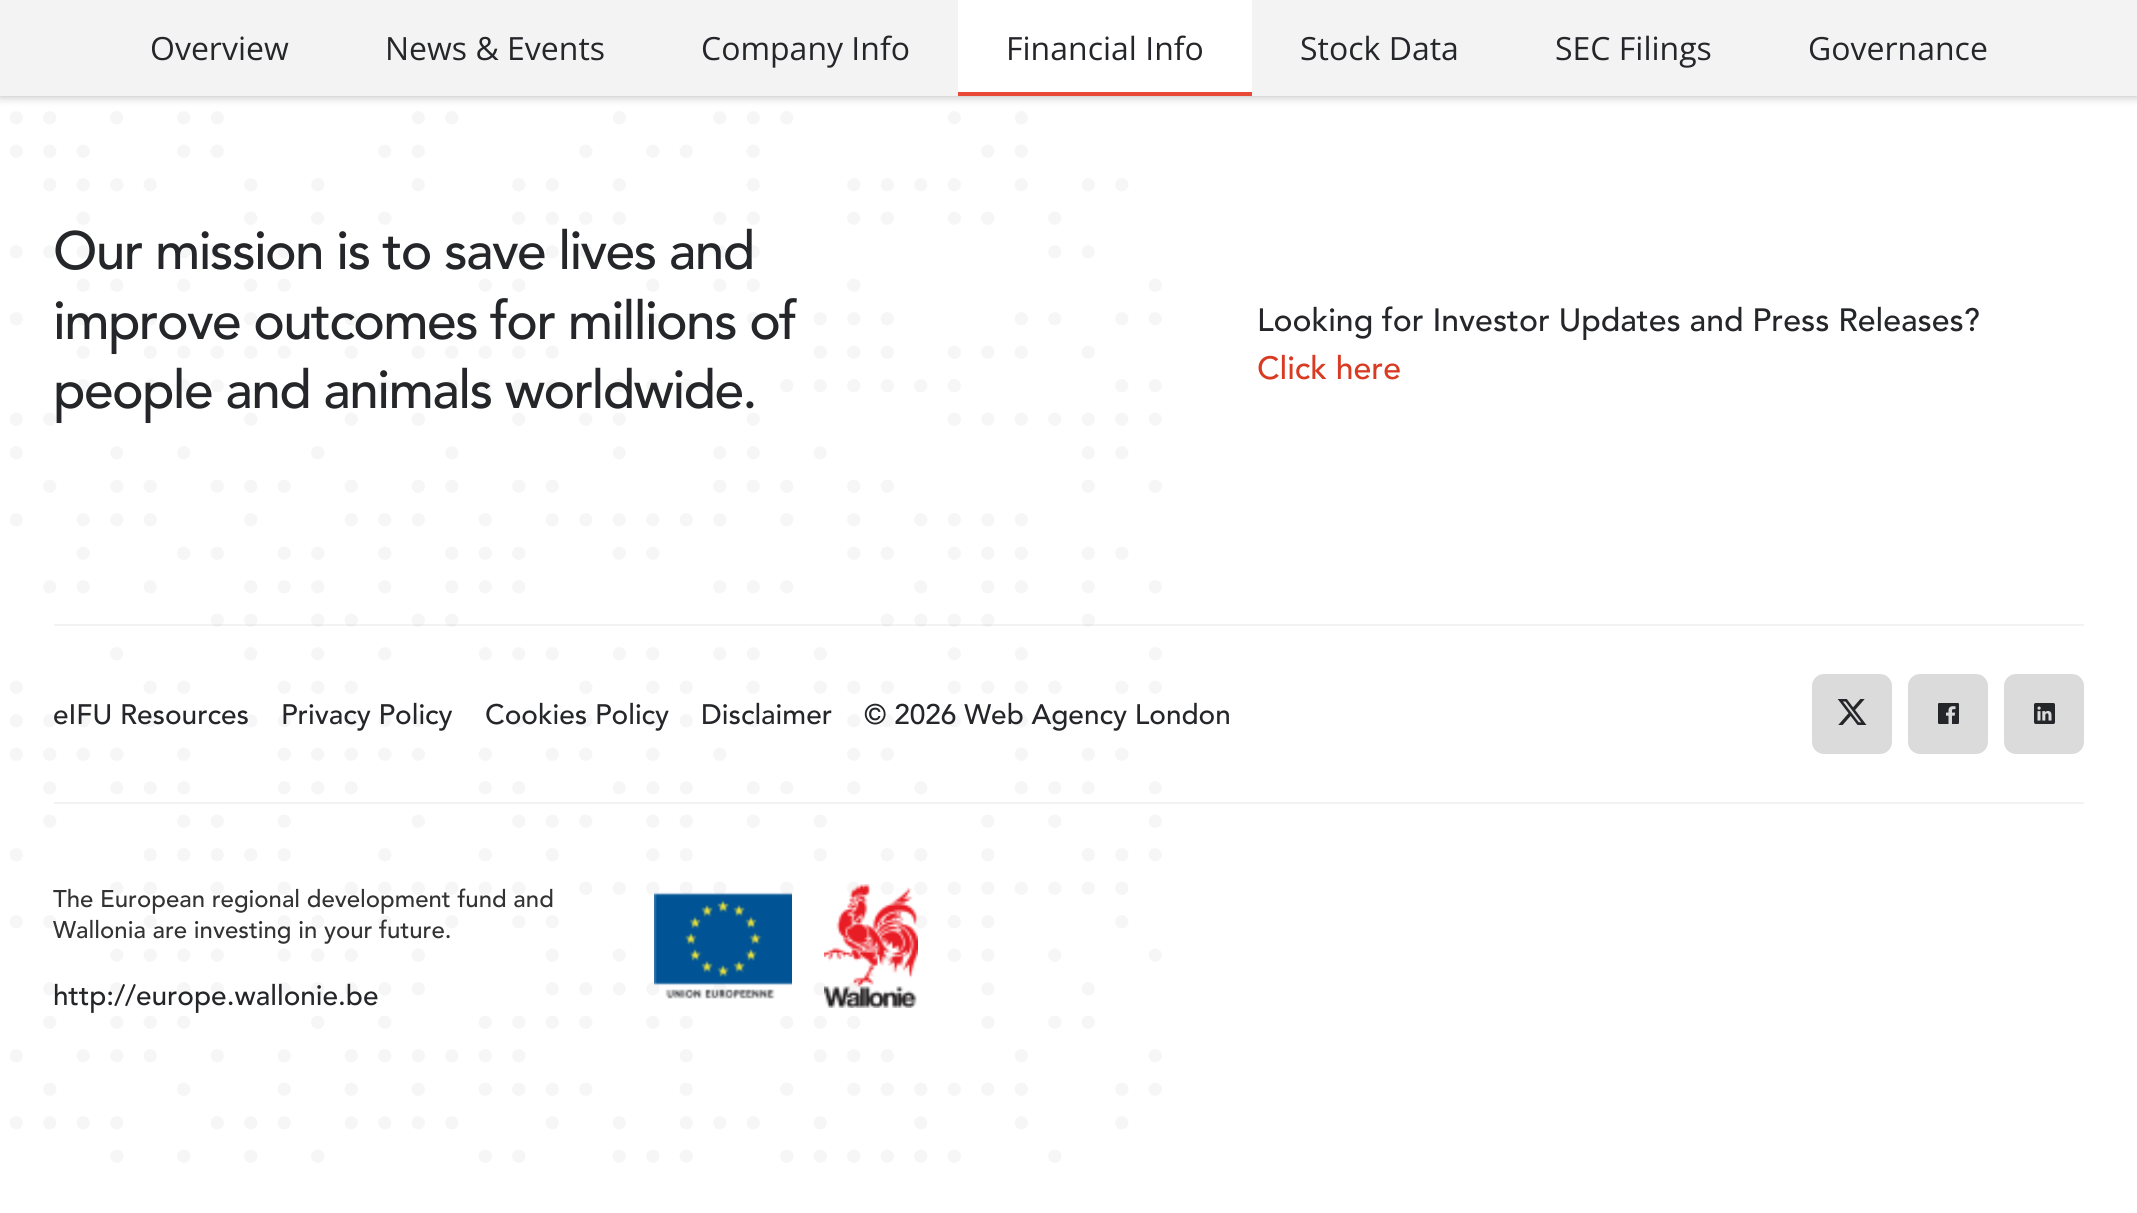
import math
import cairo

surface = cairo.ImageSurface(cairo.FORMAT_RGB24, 2137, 1213)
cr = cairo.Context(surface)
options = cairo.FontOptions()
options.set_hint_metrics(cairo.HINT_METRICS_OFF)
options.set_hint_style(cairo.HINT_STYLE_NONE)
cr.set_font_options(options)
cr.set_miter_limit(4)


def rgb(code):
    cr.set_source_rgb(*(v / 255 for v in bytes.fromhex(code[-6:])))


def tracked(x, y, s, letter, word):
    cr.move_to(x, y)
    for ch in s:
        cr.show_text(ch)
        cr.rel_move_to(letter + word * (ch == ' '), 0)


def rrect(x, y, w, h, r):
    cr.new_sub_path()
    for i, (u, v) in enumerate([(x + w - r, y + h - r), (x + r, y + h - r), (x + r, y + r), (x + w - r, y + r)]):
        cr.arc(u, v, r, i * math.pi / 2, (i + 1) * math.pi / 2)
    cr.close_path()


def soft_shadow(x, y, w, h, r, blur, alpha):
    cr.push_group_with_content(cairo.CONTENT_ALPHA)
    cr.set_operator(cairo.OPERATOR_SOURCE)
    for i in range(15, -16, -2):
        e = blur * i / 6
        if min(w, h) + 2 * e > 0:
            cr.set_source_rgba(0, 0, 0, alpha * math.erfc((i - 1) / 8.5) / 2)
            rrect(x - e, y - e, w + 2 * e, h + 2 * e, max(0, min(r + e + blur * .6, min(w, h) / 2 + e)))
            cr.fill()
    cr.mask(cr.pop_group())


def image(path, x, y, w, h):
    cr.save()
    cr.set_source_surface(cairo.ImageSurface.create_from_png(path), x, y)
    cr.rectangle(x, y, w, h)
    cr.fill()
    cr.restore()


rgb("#ffffff")
cr.paint()
image("img/1.png", 10, 111, 1152, 1052)
rgb("#000000")
soft_shadow(0, 0, 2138, 96, 0, 5, 0.3)
rgb("#f3f3f3")
cr.rectangle(0, 0, 2137, 96)
cr.fill()
rgb("#ffffff")
cr.rectangle(958, 0, 294, 92)
cr.fill()
rgb("#e94a38")
cr.rectangle(958, 92, 294, 4)
cr.fill()
cr.set_source_rgba(0.529, 0.529, 0.529, 0.1)
cr.rectangle(54, 624, 2030, 2)
cr.fill()
rgb("#f3f3f3")
cr.rectangle(54, 802, 2030, 2)
cr.fill()
rgb("#dbdbdb")
rrect(1812, 674, 80, 80, 12)
cr.fill()
image("img/2.png", 1837, 699, 30, 26)
rrect(1908, 674, 80, 80, 12)
cr.fill()
image("img/3.png", 1938, 703, 21, 21)
rrect(2004, 674, 80, 80, 12)
cr.fill()
image("img/4.png", 2034, 703, 21, 21)
image("img/5.png", 654, 892, 138, 107)
image("img/6.png", 824, 884, 94, 124)
cr.select_font_face("Open Sans")
cr.set_font_size(32)
rgb("#252629")
for x, y, s in [
    (150, 60, "Overview"),
    (385, 60, "News & Events"),
    (701, 60, "Company Info"),
    (1006, 60, "Financial Info"),
    (1300, 60, "Stock Data"),
    (1555, 60, "SEC Filings"),
    (1808, 60, "Governance"),
]:
    cr.move_to(x, y)
    cr.show_text(s)
cr.select_font_face("Avenir Medium")
cr.set_font_size(53.25)
for x, y, s in [
    (53, 269, "Our mission is to save lives and"),
    (53, 339, "improve outcomes for millions of"),
    (53, 408, "people and animals worldwide."),
]:
    tracked(x, y, s, -1.6, 0)
cr.set_font_size(32)
cr.move_to(1257, 331)
cr.show_text("Looking for Investor Updates and Press Releases?")
rgb("#d83a22")
cr.move_to(1257, 379)
cr.show_text("Click here")
cr.set_font_size(28)
rgb("#252629")
for x, y, s in [
    (53, 724, "eIFU Resources"),
    (281, 724, "Privacy Policy"),
    (485, 724, "Cookies Policy"),
    (701, 724, "Disclaimer"),
    (864, 724, "© 2026 Web Agency London"),
]:
    cr.move_to(x, y)
    cr.show_text(s)
cr.set_font_size(24)
rgb("#333333")
cr.move_to(53, 907)
cr.show_text("The European regional development fund and")
cr.move_to(53, 938)
cr.show_text("Wallonia are investing in your future.")
cr.set_font_size(28)
rgb("#252629")
cr.move_to(53, 1005)
cr.show_text("http://europe.wallonie.be")
surface.write_to_png("page.png")
